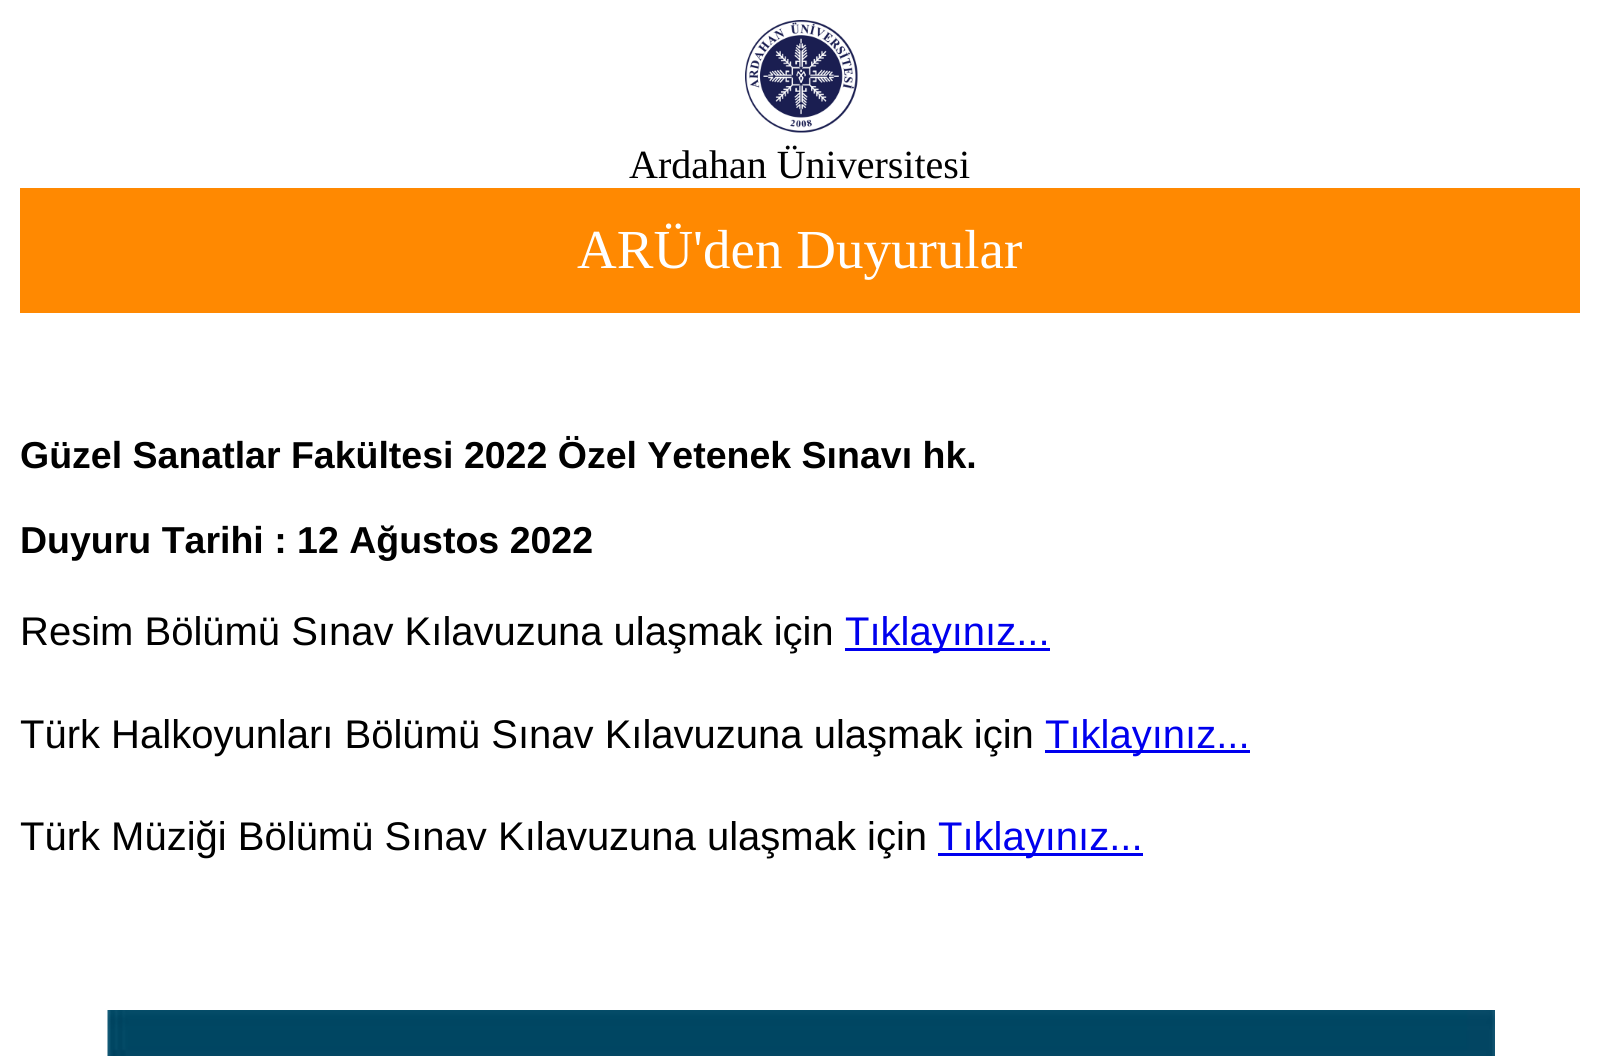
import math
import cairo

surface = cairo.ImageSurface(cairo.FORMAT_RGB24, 1600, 1056)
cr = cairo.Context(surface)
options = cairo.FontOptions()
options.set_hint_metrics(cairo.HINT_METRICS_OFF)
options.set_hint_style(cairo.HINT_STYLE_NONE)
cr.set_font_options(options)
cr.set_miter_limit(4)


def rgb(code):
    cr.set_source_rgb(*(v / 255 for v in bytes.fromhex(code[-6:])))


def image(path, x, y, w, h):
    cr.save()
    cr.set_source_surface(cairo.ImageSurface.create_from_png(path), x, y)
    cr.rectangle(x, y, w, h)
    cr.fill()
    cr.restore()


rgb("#ffffff")
cr.paint()
image("img/1.png", 745, 20, 113, 113)
for x, y, w, h, color in [
    (20, 188, 1560, 125, "#ff8901"),
    (845, 648, 205, 3, "#0000ee"),
    (1045, 750, 205, 3, "#0000ee"),
    (938, 853, 205, 3, "#0000ee"),
]:
    rgb(color)
    cr.rectangle(x, y, w, h)
    cr.fill()
image("img/2.png", 107, 1010, 1388, 46)
cr.select_font_face("Liberation Serif")
cr.set_font_size(40)
rgb("#000000")
cr.move_to(629, 178)
cr.show_text("Ardahan Üniversitesi")
cr.set_font_size(55)
rgb("#ffffff")
cr.move_to(577, 268)
cr.show_text("ARÜ'den Duyurular")
cr.select_font_face("Liberation Sans", cairo.FONT_SLANT_NORMAL, cairo.FONT_WEIGHT_BOLD)
cr.set_font_size(37.5)
rgb("#000000")
cr.move_to(20, 468)
cr.show_text("Güzel Sanatlar Fakültesi 2022 Özel Yetenek Sınavı hk.")
cr.move_to(20, 553)
cr.show_text("Duyuru Tarihi : 12 Ağustos 2022")
cr.select_font_face("Liberation Sans")
cr.set_font_size(40)
cr.move_to(20, 645)
cr.show_text("Resim Bölümü Sınav Kılavuzuna ulaşmak için")
rgb("#0000ee")
cr.move_to(845, 645)
cr.show_text("Tıklayınız...")
rgb("#000000")
cr.move_to(20, 748)
cr.show_text("Türk Halkoyunları Bölümü Sınav Kılavuzuna ulaşmak için")
rgb("#0000ee")
cr.move_to(1045, 748)
cr.show_text("Tıklayınız...")
rgb("#000000")
cr.move_to(20, 850)
cr.show_text("Türk Müziği Bölümü Sınav Kılavuzuna ulaşmak için")
rgb("#0000ee")
cr.move_to(938, 850)
cr.show_text("Tıklayınız...")
surface.write_to_png("page.png")
